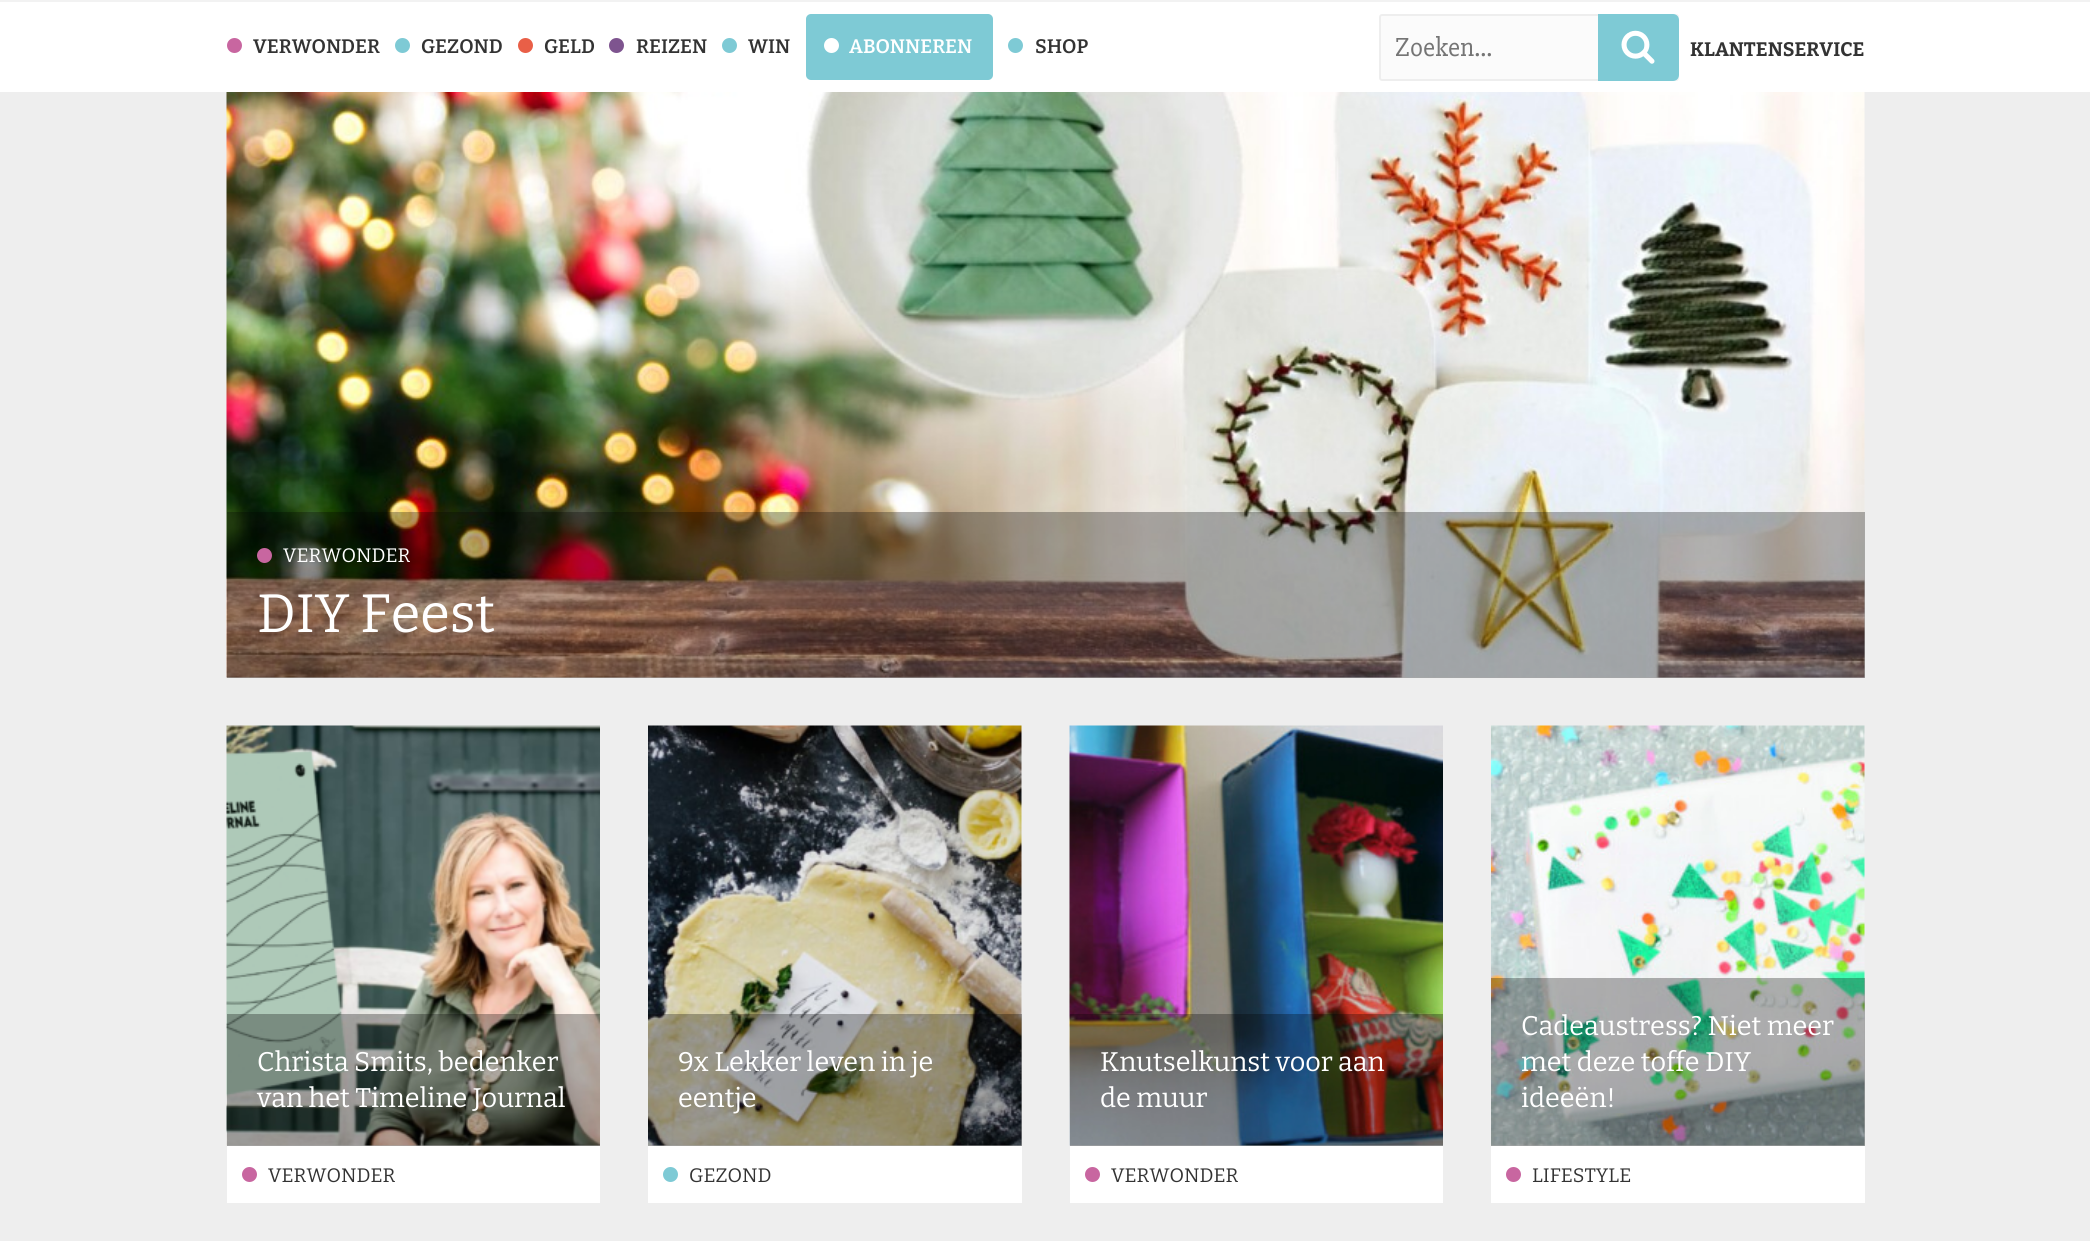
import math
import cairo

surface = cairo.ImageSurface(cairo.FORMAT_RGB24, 2090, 1241)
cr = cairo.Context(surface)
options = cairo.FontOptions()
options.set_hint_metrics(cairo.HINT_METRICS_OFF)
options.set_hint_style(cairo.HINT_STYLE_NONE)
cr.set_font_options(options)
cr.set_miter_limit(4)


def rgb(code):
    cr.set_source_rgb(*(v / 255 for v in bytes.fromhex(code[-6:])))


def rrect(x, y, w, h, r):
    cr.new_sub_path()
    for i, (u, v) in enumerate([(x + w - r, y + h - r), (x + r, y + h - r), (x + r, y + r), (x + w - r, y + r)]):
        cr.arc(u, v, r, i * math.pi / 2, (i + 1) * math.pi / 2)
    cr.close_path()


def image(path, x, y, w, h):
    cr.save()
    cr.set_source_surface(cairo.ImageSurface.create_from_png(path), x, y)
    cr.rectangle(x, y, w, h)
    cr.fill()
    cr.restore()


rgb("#eeeeee")
cr.paint()
rgb("#ffffff")
cr.rectangle(0, 2, 2090, 90)
cr.fill()
rgb("#f2f2f2")
cr.rectangle(0, 0, 2090, 2)
cr.fill()
rgb("#c866a0")
cr.arc(234.5, 45.5, 7.5, 0, 2 * math.pi)
cr.fill()
rgb("#7ecad5")
cr.arc(402.5, 45.5, 7.5, 0, 2 * math.pi)
cr.fill()
rgb("#e95f47")
cr.arc(525.5, 45.5, 7.5, 0, 2 * math.pi)
cr.fill()
rgb("#7e548f")
cr.arc(616.5, 45.5, 7.5, 0, 2 * math.pi)
cr.fill()
rgb("#7ecad5")
cr.arc(729.5, 45.5, 7.5, 0, 2 * math.pi)
cr.fill()
rrect(806, 14, 187, 66, 5)
cr.fill()
rgb("#ffffff")
cr.arc(831.5, 45.5, 7.5, 0, 2 * math.pi)
cr.fill()
rgb("#7ecad5")
cr.arc(1015.5, 45.5, 7.5, 0, 2 * math.pi)
cr.fill()
rgb("#fbfbfb")
rrect(1380, 15, 298, 65, 2)
cr.fill_preserve()
rgb("#eeeeee")
cr.stroke()
rgb("#ffffff")
rrect(1598, 14, 81, 67, 5)
cr.fill()
rgb("#7ecad5")
cr.new_path()
cr.move_to(1598, 14)
cr.line_to(1673, 14)
cr.curve_to(1676.5, 14, 1679, 16.5, 1679, 20)
cr.line_to(1679, 75)
cr.curve_to(1679, 78.5, 1676.5, 81, 1673, 81)
cr.line_to(1598, 81)
cr.close_path()
cr.fill()
image("img/1.png", 1621, 30, 34, 34)
image("img/2.png", 226, 92, 1639, 586)
cr.set_source_rgba(0, 0, 0, 0.3)
cr.rectangle(227, 512, 1638, 166)
cr.fill()
rgb("#c866a0")
cr.arc(264.5, 555.5, 7.5, 0, 2 * math.pi)
cr.fill()
image("img/3.png", 226, 725, 374, 421)
cr.set_source_rgba(0, 0, 0, 0.3)
cr.rectangle(227, 1014, 373, 132)
cr.fill()
rgb("#ffffff")
cr.rectangle(227, 1146, 373, 57)
cr.fill()
rgb("#c866a0")
cr.arc(249.5, 1174.5, 7.5, 0, 2 * math.pi)
cr.fill()
image("img/4.png", 648, 725, 374, 421)
cr.set_source_rgba(0, 0, 0, 0.3)
cr.rectangle(648, 1014, 374, 132)
cr.fill()
rgb("#ffffff")
cr.rectangle(648, 1146, 374, 57)
cr.fill()
rgb("#7ecad5")
cr.arc(670.5, 1174.5, 7.5, 0, 2 * math.pi)
cr.fill()
image("img/5.png", 1069, 725, 374, 421)
cr.set_source_rgba(0, 0, 0, 0.3)
cr.rectangle(1070, 1014, 373, 132)
cr.fill()
rgb("#ffffff")
cr.rectangle(1070, 1146, 373, 57)
cr.fill()
rgb("#c866a0")
cr.arc(1092.5, 1174.5, 7.5, 0, 2 * math.pi)
cr.fill()
image("img/6.png", 1491, 725, 374, 421)
cr.set_source_rgba(0, 0, 0, 0.3)
cr.rectangle(1491, 978, 374, 168)
cr.fill()
rgb("#ffffff")
cr.rectangle(1491, 1146, 374, 57)
cr.fill()
rgb("#c866a0")
cr.arc(1513.5, 1174.5, 7.5, 0, 2 * math.pi)
cr.fill()
cr.select_font_face("Bitter SemiBold")
cr.set_font_size(19.5)
rgb("#333333")
for x, y, s in [
    (253, 53, "VERWONDER"),
    (421, 53, "GEZOND"),
    (544, 53, "GELD"),
    (636, 53, "REIZEN"),
    (748, 53, "WIN"),
]:
    cr.move_to(x, y)
    cr.show_text(s)
rgb("#ffffff")
cr.move_to(849, 53)
cr.show_text("ABONNEREN")
rgb("#333333")
cr.move_to(1035, 53)
cr.show_text("SHOP")
cr.select_font_face("Slabo 27px")
cr.set_font_size(27)
rgb("#757575")
cr.move_to(1395, 56)
cr.show_text("Zoeken...")
cr.select_font_face("Bitter", cairo.FONT_SLANT_NORMAL, cairo.FONT_WEIGHT_BOLD)
cr.set_font_size(19.5)
rgb("#333333")
cr.move_to(1690, 56)
cr.show_text("KLANTENSERVICE")
cr.select_font_face("Bitter")
rgb("#ffffff")
cr.move_to(283, 562)
cr.show_text("VERWONDER")
cr.set_font_size(54)
cr.move_to(257, 632)
cr.show_text("DIY Feest")
cr.set_font_size(27)
cr.move_to(257, 1071)
cr.show_text("Christa Smits, bedenker")
cr.move_to(257, 1107)
cr.show_text("van het Timeline Journal")
cr.set_font_size(19.5)
rgb("#333333")
cr.move_to(268, 1182)
cr.show_text("VERWONDER")
cr.set_font_size(27)
rgb("#ffffff")
cr.move_to(678, 1071)
cr.show_text("9x Lekker leven in je")
cr.move_to(678, 1107)
cr.show_text("eentje")
cr.set_font_size(19.5)
rgb("#333333")
cr.move_to(689, 1182)
cr.show_text("GEZOND")
cr.set_font_size(27)
rgb("#ffffff")
cr.move_to(1100, 1071)
cr.show_text("Knutselkunst voor aan")
cr.move_to(1100, 1107)
cr.show_text("de muur")
cr.set_font_size(19.5)
rgb("#333333")
cr.move_to(1111, 1182)
cr.show_text("VERWONDER")
cr.set_font_size(27)
rgb("#ffffff")
for x, y, s in [
    (1521, 1035, "Cadeaustress? Niet meer"),
    (1521, 1071, "met deze toffe DIY"),
    (1521, 1107, "ideeën!"),
]:
    cr.move_to(x, y)
    cr.show_text(s)
cr.set_font_size(19.5)
rgb("#333333")
cr.move_to(1532, 1182)
cr.show_text("LIFESTYLE")
surface.write_to_png("page.png")
